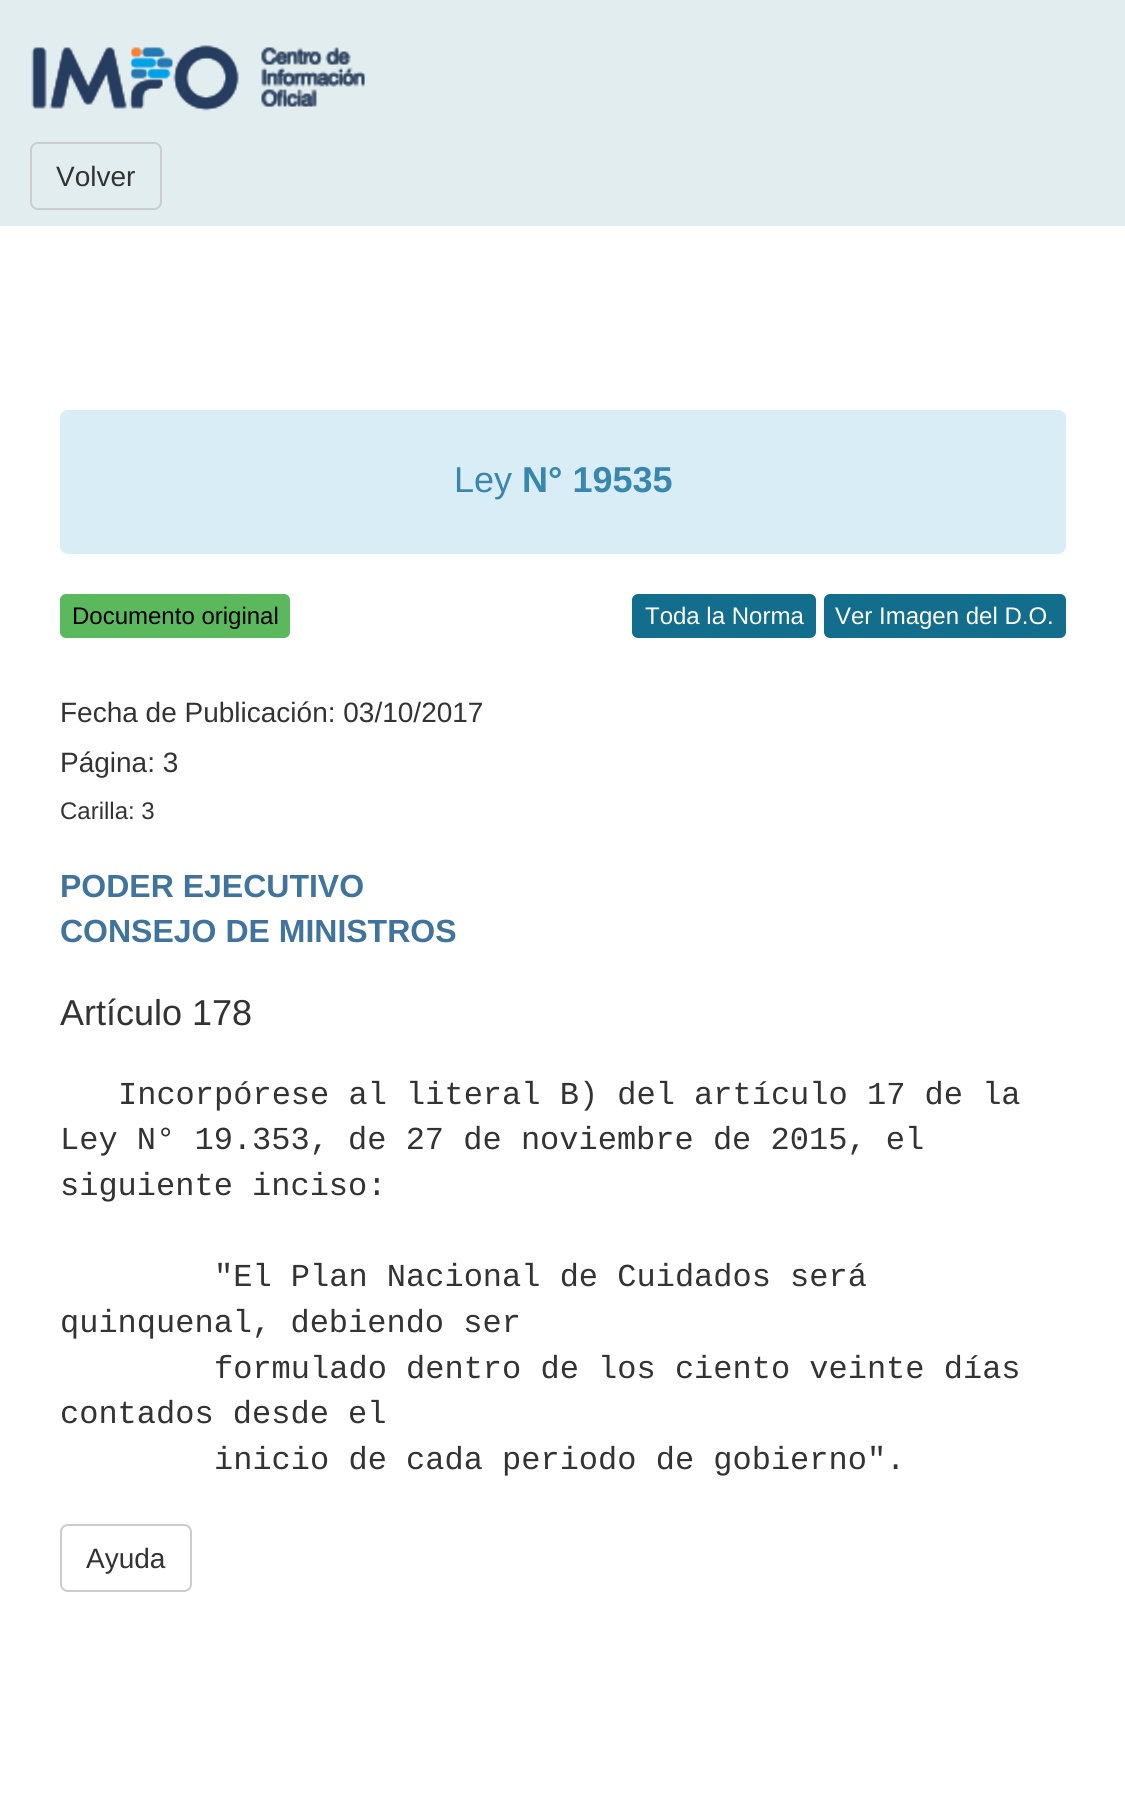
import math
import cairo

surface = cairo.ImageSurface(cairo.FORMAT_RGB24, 1125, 1818)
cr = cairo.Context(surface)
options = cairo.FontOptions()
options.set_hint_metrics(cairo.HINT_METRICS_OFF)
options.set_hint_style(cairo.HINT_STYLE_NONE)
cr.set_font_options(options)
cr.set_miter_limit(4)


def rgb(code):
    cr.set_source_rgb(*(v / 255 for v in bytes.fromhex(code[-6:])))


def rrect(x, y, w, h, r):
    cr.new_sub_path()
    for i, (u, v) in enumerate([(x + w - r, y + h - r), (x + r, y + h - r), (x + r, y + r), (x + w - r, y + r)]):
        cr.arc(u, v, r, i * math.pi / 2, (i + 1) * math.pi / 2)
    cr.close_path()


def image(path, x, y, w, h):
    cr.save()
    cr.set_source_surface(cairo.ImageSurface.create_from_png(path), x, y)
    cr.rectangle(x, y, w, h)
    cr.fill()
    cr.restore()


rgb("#ffffff")
cr.paint()
rgb("#e2edf0")
cr.rectangle(0, 0, 1125, 226)
cr.fill()
image("img/1.png", 31, 45, 334, 66)
image("img/2.png", 31, 45, 334, 66)
rrect(31, 143, 130, 66, 7)
rgb("#cccccc")
cr.stroke()
rgb("#d9edf7")
rrect(60, 410, 1006, 144, 8)
cr.fill()
rgb("#5cb85c")
rrect(60, 594, 230, 44, 6)
cr.fill()
rgb("#136d8d")
rrect(633, 595, 182, 42, 5)
cr.fill_preserve()
cr.stroke()
rrect(825, 595, 240, 42, 5)
cr.fill_preserve()
cr.stroke()
rrect(61, 1525, 130, 66, 7)
rgb("#cccccc")
cr.stroke()
cr.select_font_face("Liberation Sans")
cr.set_font_size(28)
rgb("#333333")
cr.move_to(56, 186)
cr.show_text("Volver")
cr.set_font_size(36)
rgb("#3a87ad")
cr.move_to(454, 492)
cr.show_text("Ley")
cr.select_font_face("Liberation Sans", cairo.FONT_SLANT_NORMAL, cairo.FONT_WEIGHT_BOLD)
cr.move_to(522, 492)
cr.show_text("N° 19535")
cr.select_font_face("Liberation Sans")
cr.set_font_size(24)
rgb("#000000")
cr.move_to(72, 624)
cr.show_text("Documento original")
rgb("#ffffff")
cr.move_to(645, 624)
cr.show_text("Toda la Norma")
cr.move_to(835, 624)
cr.show_text("Ver Imagen del D.O.")
cr.set_font_size(28)
rgb("#333333")
cr.move_to(60, 722)
cr.show_text("Fecha de Publicación: 03/10/2017")
cr.move_to(60, 772)
cr.show_text("Página: 3")
cr.set_font_size(24)
cr.move_to(60, 819)
cr.show_text("Carilla: 3")
cr.select_font_face("Liberation Sans", cairo.FONT_SLANT_NORMAL, cairo.FONT_WEIGHT_BOLD)
cr.set_font_size(32)
rgb("#40749d")
cr.move_to(60, 897)
cr.show_text("PODER EJECUTIVO")
cr.move_to(60, 942)
cr.show_text("CONSEJO DE MINISTROS")
cr.select_font_face("Liberation Sans")
cr.set_font_size(36)
rgb("#333333")
cr.move_to(60, 1025)
cr.show_text("Artículo 178")
cr.select_font_face("Liberation Mono")
cr.set_font_size(32)
for x, y, s in [
    (118, 1104, "Incorpórese al literal B) del artículo 17 de la"),
    (60, 1149, "Ley N° 19.353, de 27 de noviembre de 2015, el"),
    (60, 1195, "siguiente inciso:"),
    (214, 1286, "\"El Plan Nacional de Cuidados será"),
    (60, 1332, "quinquenal, debiendo ser"),
    (214, 1378, "formulado dentro de los ciento veinte días"),
    (60, 1423, "contados desde el"),
    (214, 1469, "inicio de cada periodo de gobierno\"."),
]:
    cr.move_to(x, y)
    cr.show_text(s)
cr.select_font_face("Liberation Sans")
cr.set_font_size(28)
cr.move_to(86, 1568)
cr.show_text("Ayuda")
surface.write_to_png("page.png")
